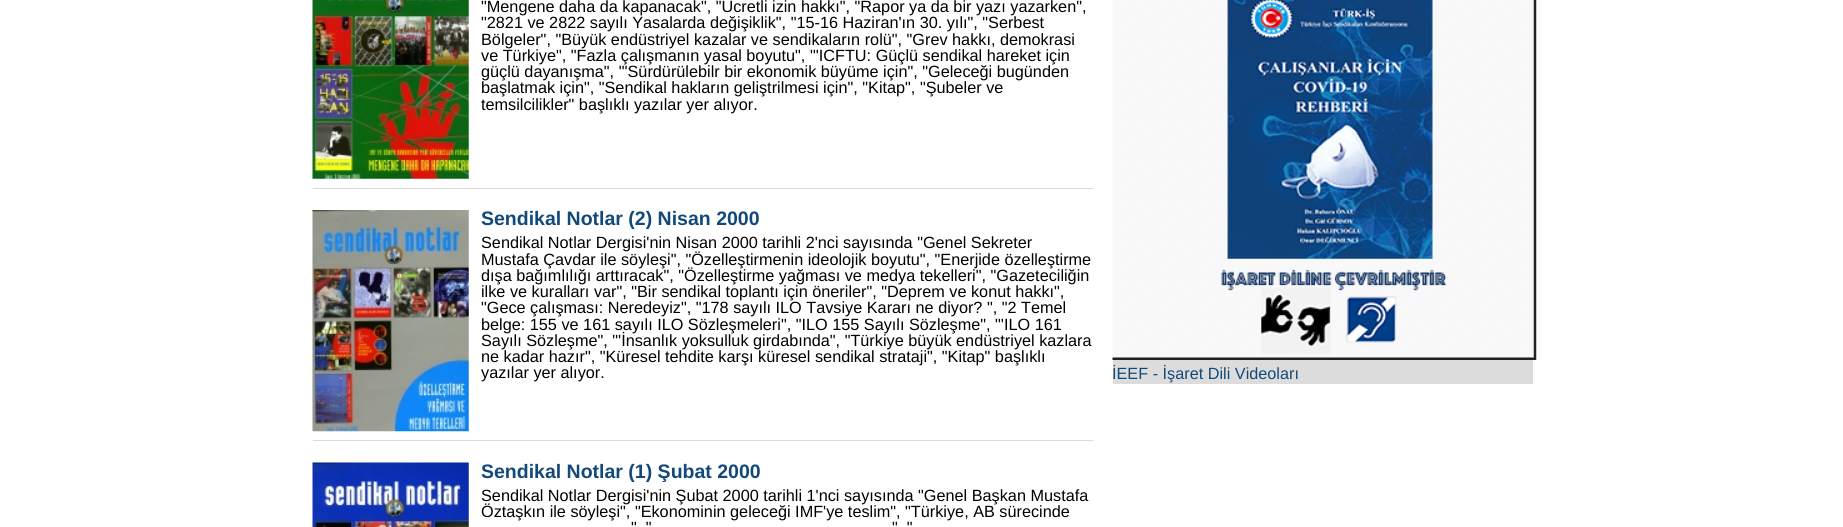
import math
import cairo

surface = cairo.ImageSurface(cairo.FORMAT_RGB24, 1843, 527)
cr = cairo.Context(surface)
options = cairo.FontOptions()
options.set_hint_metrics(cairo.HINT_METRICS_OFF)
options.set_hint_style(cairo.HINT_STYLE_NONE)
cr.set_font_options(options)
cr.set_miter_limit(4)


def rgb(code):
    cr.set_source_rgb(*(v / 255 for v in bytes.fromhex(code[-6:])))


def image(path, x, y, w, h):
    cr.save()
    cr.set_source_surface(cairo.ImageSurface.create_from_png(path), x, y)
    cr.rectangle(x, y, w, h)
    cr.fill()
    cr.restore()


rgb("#ffffff")
cr.paint()
rgb("#dcdcdc")
cr.rectangle(313, 188, 780, 1)
cr.fill()
image("img/1.png", 312, 0, 157, 179)
cr.rectangle(313, 440, 780, 1)
cr.fill()
image("img/2.png", 312, 210, 157, 222)
image("img/3.png", 312, 462, 157, 65)
cr.rectangle(1113, 360, 420, 24)
cr.fill()
image("img/4.png", 1112, 0, 425, 360)
cr.select_font_face("Liberation Sans")
cr.set_font_size(16.25)
rgb("#000000")
for x, y, s in [
    (481, 12, "\"Mengene daha da kapanacak\", \"Ücretli izin hakkı\", \"Rapor ya da bir yazı yazarken\","),
    (481, 28, "\"2821 ve 2822 sayılı Yasalarda değişiklik\", \"15-16 Haziran'ın 30. yılı\", \"Serbest"),
    (481, 45, "Bölgeler\", \"Büyük endüstriyel kazalar ve sendikaların rolü\", \"Grev hakkı, demokrasi"),
    (481, 61, "ve Türkiye\", \"Fazla çalışmanın yasal boyutu\", \"'ICFTU: Güçlü sendikal hareket için"),
    (481, 77, "güçlü dayanışma\", \"'Sürdürülebilr bir ekonomik büyüme için\", \"Geleceği bugünden"),
    (481, 93, "başlatmak için\", \"Sendikal hakların geliştrilmesi için\", \"Kitap\", \"Şubeler ve"),
    (481, 110, "temsilcilikler\" başlıklı yazılar yer alıyor."),
]:
    cr.move_to(x, y)
    cr.show_text(s)
cr.select_font_face("Liberation Sans", cairo.FONT_SLANT_NORMAL, cairo.FONT_WEIGHT_BOLD)
cr.set_font_size(19.5)
rgb("#12497b")
cr.move_to(481, 225)
cr.show_text("Sendikal Notlar (2) Nisan 2000")
cr.select_font_face("Liberation Sans")
cr.set_font_size(16.25)
rgb("#000000")
for x, y, s in [
    (481, 248, "Sendikal Notlar Dergisi'nin Nisan 2000 tarihli 2'nci sayısında \"Genel Sekreter"),
    (481, 265, "Mustafa Çavdar ile söyleşi\", \"Özelleştirmenin ideolojik boyutu\", \"Enerjide özelleştirme"),
    (481, 281, "dışa bağımlılığı arttıracak\", \"Özelleştirme yağması ve medya tekelleri\", \"Gazeteciliğin"),
    (481, 297, "ilke ve kuralları var\", \"Bir sendikal toplantı için öneriler\", \"Deprem ve konut hakkı\","),
    (481, 313, "\"Gece çalışması: Neredeyiz\", \"178 sayılı ILO Tavsiye Kararı ne diyor? \", \"2 Temel"),
    (481, 330, "belge: 155 ve 161 sayılı ILO Sözleşmeleri\", \"ILO 155 Sayılı Sözleşme\", \"'ILO 161"),
    (481, 346, "Sayılı Sözleşme\", \"'İnsanlık yoksulluk girdabında\", \"Türkiye büyük endüstriyel kazlara"),
    (481, 362, "ne kadar hazır\", \"Küresel tehdite karşı küresel sendikal strataji\", \"Kitap\" başlıklı"),
    (481, 378, "yazılar yer alıyor."),
]:
    cr.move_to(x, y)
    cr.show_text(s)
cr.select_font_face("Liberation Sans", cairo.FONT_SLANT_NORMAL, cairo.FONT_WEIGHT_BOLD)
cr.set_font_size(19.5)
rgb("#12497b")
cr.move_to(481, 478)
cr.show_text("Sendikal Notlar (1) Şubat 2000")
cr.select_font_face("Liberation Sans")
cr.set_font_size(16.25)
rgb("#000000")
for x, y, s in [
    (481, 501, "Sendikal Notlar Dergisi'nin Şubat 2000 tarihli 1'nci sayısında \"Genel Başkan Mustafa"),
    (481, 517, "Öztaşkın ile söyleşi\", \"Ekonominin geleceği IMF'ye teslim\", \"Türkiye, AB sürecinde"),
    (631, 533, "\", \""),
    (892, 533, "\", \""),
]:
    cr.move_to(x, y)
    cr.show_text(s)
rgb("#12497b")
cr.move_to(1112, 379)
cr.show_text("İEEF - İşaret Dili Videoları")
surface.write_to_png("page.png")
